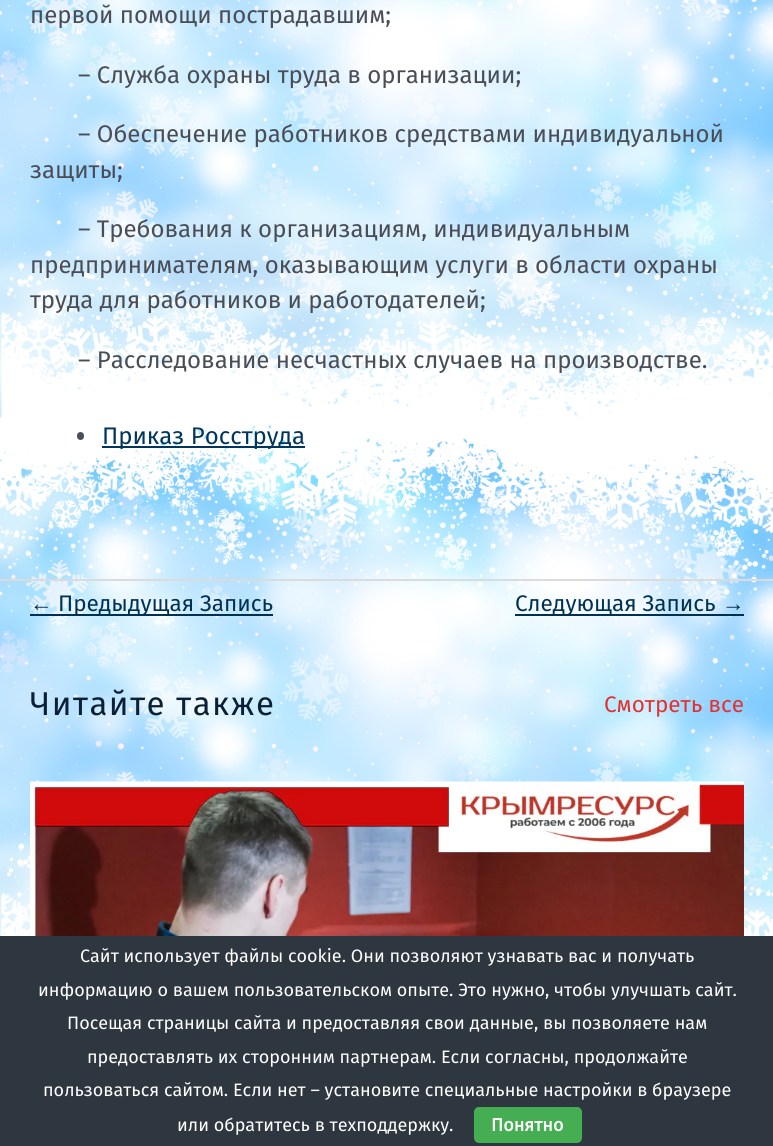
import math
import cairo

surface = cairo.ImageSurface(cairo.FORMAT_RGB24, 773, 1146)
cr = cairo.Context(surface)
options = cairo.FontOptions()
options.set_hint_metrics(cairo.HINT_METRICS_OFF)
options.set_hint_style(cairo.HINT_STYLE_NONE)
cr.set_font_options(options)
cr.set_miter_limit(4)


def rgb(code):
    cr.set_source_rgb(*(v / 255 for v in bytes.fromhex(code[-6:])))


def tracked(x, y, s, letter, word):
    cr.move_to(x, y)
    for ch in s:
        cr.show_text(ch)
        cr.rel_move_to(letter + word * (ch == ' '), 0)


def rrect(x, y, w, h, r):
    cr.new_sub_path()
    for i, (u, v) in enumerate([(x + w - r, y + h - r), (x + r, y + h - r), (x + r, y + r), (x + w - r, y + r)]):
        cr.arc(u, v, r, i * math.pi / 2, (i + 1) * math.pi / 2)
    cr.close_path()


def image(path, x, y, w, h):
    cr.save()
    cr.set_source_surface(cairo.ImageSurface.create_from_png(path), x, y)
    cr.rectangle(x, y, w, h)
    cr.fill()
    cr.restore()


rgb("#ffffff")
cr.paint()
image("img/1.png", 0, 0, 773, 936)
rgb("#4b4f58")
rrect(77, 432, 7, 8, 3.5)
cr.fill()
for x, y, w, h, color in [
    (102, 446, 203, 2, "#00355e"),
    (0, 579, 773, 2, "#dbdbdb"),
    (30, 614, 243, 2, "#003153"),
    (515, 614, 229, 2, "#003153"),
]:
    rgb(color)
    cr.rectangle(x, y, w, h)
    cr.fill()
image("img/2.png", 30, 781, 714, 155)
rgb("#2e363f")
cr.rectangle(0, 936, 773, 210)
cr.fill()
rgb("#45ae52")
rrect(474, 1107, 108, 36, 5)
cr.fill()
cr.select_font_face("Fira Sans")
cr.set_font_size(24)
rgb("#4a4d55")
for x, y, s in [
    (30, 23, "первой помощи пострадавшим;"),
    (78, 83, "– Служба охраны труда в организации;"),
    (78, 142, "– Обеспечение работников средствами индивидуальной"),
    (30, 178, "защиты;"),
    (78, 237, "– Требования к организациям, индивидуальным"),
    (30, 273, "предпринимателям, оказывающим услуги в области охраны"),
    (30, 308, "труда для работников и работодателей;"),
    (78, 368, "– Расследование несчастных случаев на производстве."),
]:
    cr.move_to(x, y)
    cr.show_text(s)
rgb("#00355e")
cr.move_to(102, 444)
cr.show_text("Приказ Росструда")
cr.select_font_face("Liberation Sans")
cr.set_font_size(22.5)
rgb("#003153")
cr.move_to(30, 611)
cr.show_text("←")
cr.select_font_face("Fira Sans")
cr.move_to(58, 611)
cr.show_text("Предыдущая Запись")
cr.move_to(515, 611)
cr.show_text("Следующая Запись")
cr.select_font_face("Liberation Sans")
cr.move_to(722, 611)
cr.show_text("→")
cr.select_font_face("Fira Sans")
cr.set_font_size(33)
rgb("#0b1f35")
tracked(30, 715, "Читайте также", 1.5, 0)
cr.set_font_size(22.5)
rgb("#e3312d")
cr.move_to(604, 712)
cr.show_text("Смотреть все")
cr.set_font_size(18)
rgb("#ffffff")
for x, y, s in [
    (80, 962, "Сайт использует файлы cookie. Они позволяют узнавать вас и получать"),
    (38, 996, "информацию о вашем пользовательском опыте. Это нужно, чтобы улучшать сайт."),
    (67, 1029, "Посещая страницы сайта и предоставляя свои данные, вы позволяете нам"),
    (87, 1063, "предоставлять их сторонним партнерам. Если согласны, продолжайте"),
    (43, 1096, "пользоваться сайтом. Если нет – установите специальные настройки в браузере"),
    (177, 1131, "или обратитесь в техподдержку."),
]:
    cr.move_to(x, y)
    cr.show_text(s)
cr.select_font_face("Fira Sans", cairo.FONT_SLANT_NORMAL, cairo.FONT_WEIGHT_BOLD)
cr.move_to(491, 1131)
cr.show_text("Понятно")
surface.write_to_png("page.png")
